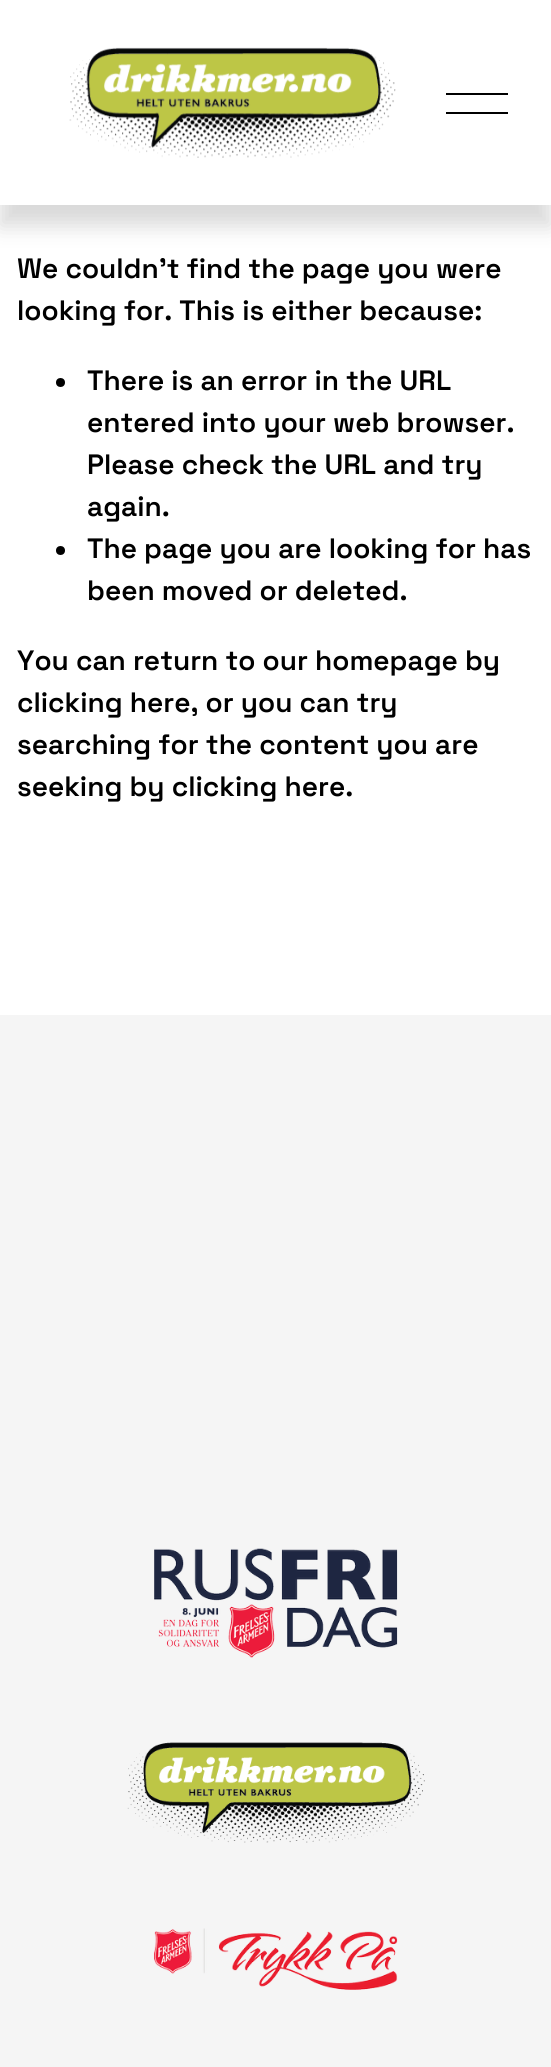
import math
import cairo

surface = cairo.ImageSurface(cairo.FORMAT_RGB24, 551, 2067)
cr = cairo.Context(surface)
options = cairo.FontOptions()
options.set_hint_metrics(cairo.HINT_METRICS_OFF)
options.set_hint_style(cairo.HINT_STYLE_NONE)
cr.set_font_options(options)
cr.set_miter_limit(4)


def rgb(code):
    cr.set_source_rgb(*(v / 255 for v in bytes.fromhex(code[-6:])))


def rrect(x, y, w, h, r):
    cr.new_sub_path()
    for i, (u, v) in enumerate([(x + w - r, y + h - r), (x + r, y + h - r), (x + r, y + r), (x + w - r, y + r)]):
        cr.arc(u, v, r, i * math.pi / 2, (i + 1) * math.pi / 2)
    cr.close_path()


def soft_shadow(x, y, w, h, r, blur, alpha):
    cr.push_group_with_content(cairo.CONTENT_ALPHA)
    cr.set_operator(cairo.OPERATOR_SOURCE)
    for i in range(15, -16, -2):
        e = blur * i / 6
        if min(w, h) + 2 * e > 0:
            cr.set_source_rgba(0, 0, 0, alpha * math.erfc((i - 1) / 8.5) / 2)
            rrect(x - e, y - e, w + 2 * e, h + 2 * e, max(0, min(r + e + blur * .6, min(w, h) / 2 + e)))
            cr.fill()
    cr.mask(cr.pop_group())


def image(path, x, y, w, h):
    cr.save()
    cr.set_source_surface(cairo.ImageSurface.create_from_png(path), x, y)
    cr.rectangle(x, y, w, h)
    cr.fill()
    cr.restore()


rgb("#ffffff")
cr.paint()
cr.save()
cr.rectangle(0, 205, 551, 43)
cr.clip()
rgb("#d9d9d9")
soft_shadow(0, 21, 551, 205, 0, 10.5, 1)
cr.restore()
image("img/1.png", 69, 47, 327, 111)
for x, y, w, h, color in [
    (446, 93, 62, 2, "#000000"),
    (446, 112, 62, 2, "#000000"),
    (0, 204, 551, 1, "#ffffff"),
]:
    rgb(color)
    cr.rectangle(x, y, w, h)
    cr.fill()
rgb("#000000")
cr.arc(60.5, 382.5, 4.5, 0, 2 * math.pi)
cr.fill()
cr.arc(60.5, 550.5, 4.5, 0, 2 * math.pi)
cr.fill()
rgb("#f5f5f5")
cr.rectangle(0, 1015, 551, 1052)
cr.fill()
image("img/2.png", 154, 1548, 244, 110)
image("img/3.png", 127, 1742, 298, 101)
image("img/4.png", 154, 1928, 244, 62)
cr.select_font_face("Space Grotesk SemiBold")
cr.set_font_size(28)
rgb("#000000")
for x, y, s in [
    (17, 278, "We couldn't find the page you were"),
    (17, 320, "looking for. This is either because:"),
    (87, 390, "There is an error in the URL"),
    (87, 432, "entered into your web browser."),
    (87, 474, "Please check the URL and try"),
    (87, 516, "again."),
    (87, 558, "The page you are looking for has"),
    (87, 600, "been moved or deleted."),
    (17, 670, "You can return to our homepage by"),
    (17, 712, "clicking here, or you can try"),
    (17, 754, "searching for the content you are"),
    (17, 796, "seeking by clicking here."),
]:
    cr.move_to(x, y)
    cr.show_text(s)
surface.write_to_png("page.png")
